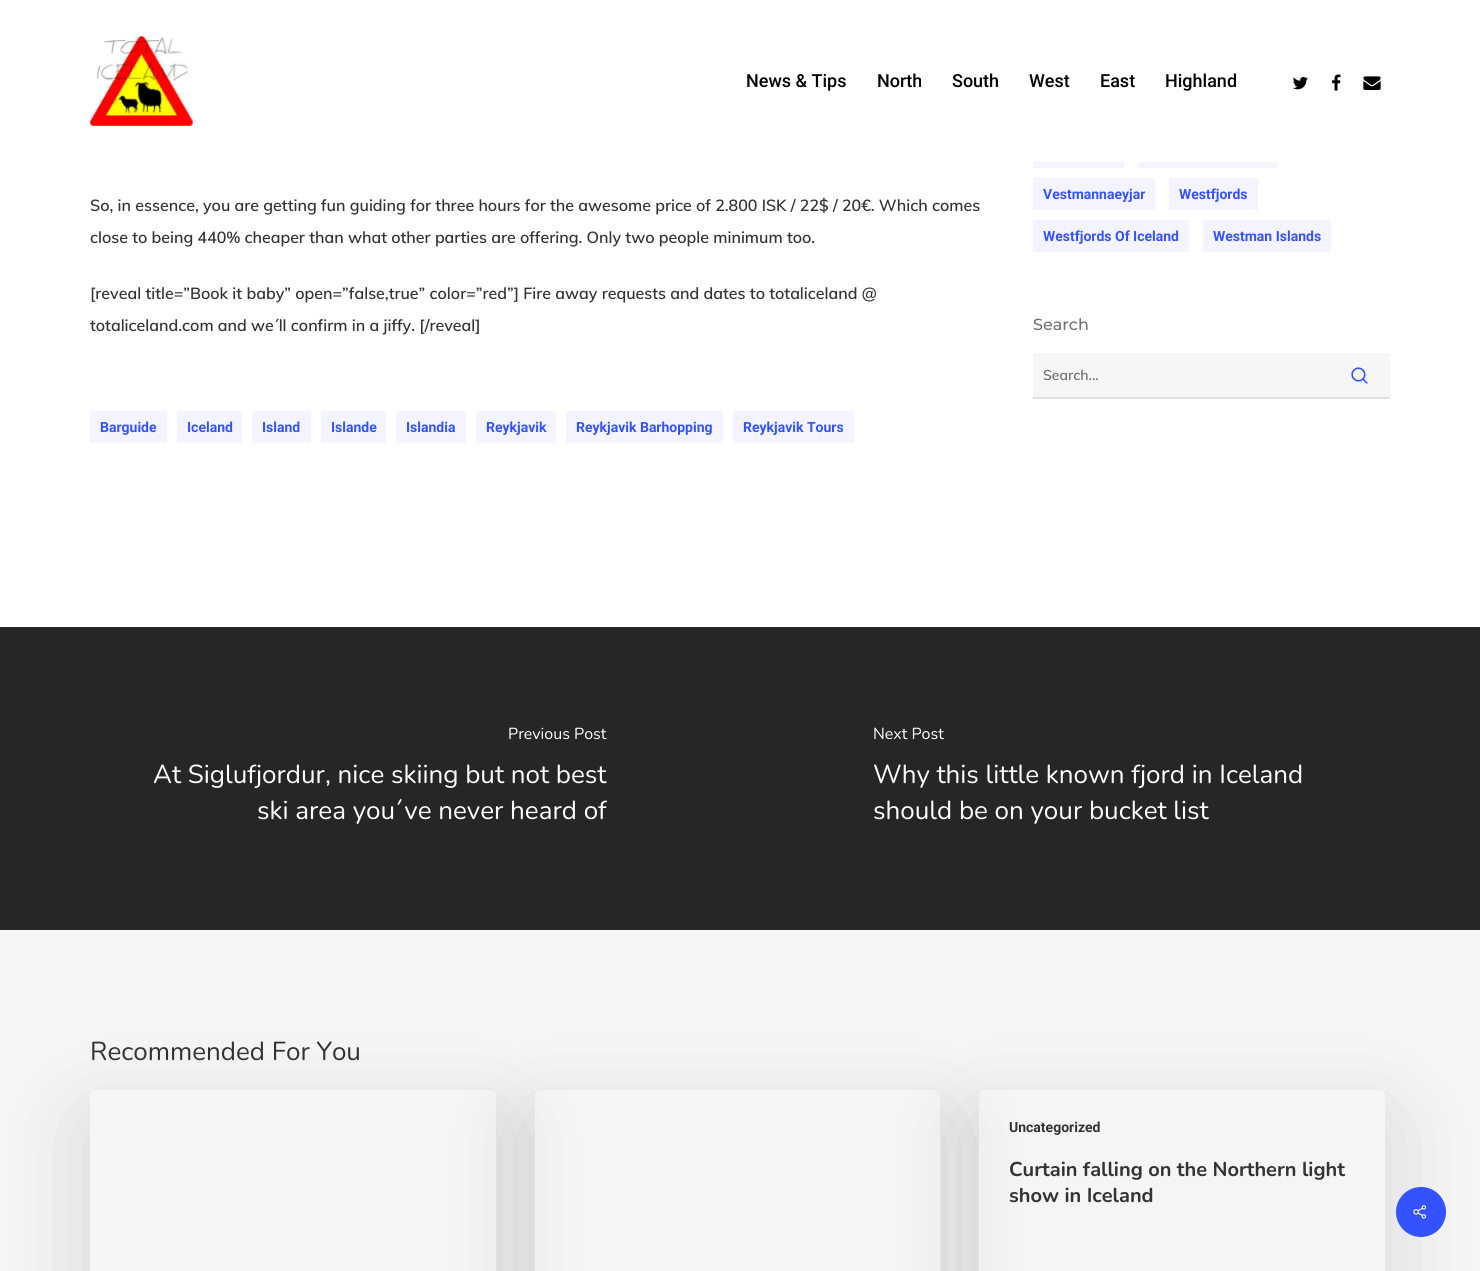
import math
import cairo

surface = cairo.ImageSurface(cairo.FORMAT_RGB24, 1480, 1271)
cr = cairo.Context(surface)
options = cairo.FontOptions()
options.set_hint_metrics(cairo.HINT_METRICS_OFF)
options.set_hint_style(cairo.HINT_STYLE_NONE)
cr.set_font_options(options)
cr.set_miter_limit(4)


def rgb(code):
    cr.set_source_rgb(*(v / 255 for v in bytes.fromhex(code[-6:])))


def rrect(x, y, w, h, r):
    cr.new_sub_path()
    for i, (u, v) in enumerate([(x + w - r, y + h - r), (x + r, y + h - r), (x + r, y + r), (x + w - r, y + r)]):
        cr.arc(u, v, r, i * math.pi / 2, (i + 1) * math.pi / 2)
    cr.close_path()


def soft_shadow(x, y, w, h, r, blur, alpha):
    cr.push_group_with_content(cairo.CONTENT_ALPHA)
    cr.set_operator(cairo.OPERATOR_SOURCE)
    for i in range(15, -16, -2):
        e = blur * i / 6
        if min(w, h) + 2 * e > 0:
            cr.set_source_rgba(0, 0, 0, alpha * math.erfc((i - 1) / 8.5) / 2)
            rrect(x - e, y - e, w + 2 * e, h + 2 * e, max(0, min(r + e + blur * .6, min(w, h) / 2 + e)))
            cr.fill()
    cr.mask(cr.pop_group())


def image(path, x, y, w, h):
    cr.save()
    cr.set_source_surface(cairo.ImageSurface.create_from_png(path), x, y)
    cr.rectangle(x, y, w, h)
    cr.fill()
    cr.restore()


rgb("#ffffff")
cr.paint()
cr.set_source_rgba(0.204, 0.322, 1, 0.06)
cr.rectangle(1033, 10, 104, 32)
cr.fill()
cr.rectangle(1151, 10, 145, 32)
cr.fill()
cr.rectangle(1033, 52, 101, 32)
cr.fill()
cr.rectangle(1148, 52, 106, 32)
cr.fill()
cr.rectangle(1269, 52, 87, 32)
cr.fill()
cr.rectangle(1033, 94, 109, 32)
cr.fill()
cr.rectangle(1156, 94, 124, 32)
cr.fill()
cr.rectangle(1033, 136, 91, 32)
cr.fill()
cr.rectangle(1138, 136, 139, 32)
cr.fill()
cr.set_source_rgba(1, 1, 1, 0.97)
cr.rectangle(1033, 10, 323, 152)
cr.fill()
image("img/1.png", 90, 36, 103, 90)
image("img/2.png", 1293, 77, 15, 13)
image("img/3.png", 1332, 74, 9, 17)
image("img/4.png", 1363, 76, 18, 14)
rgb("#f5f5f5")
cr.rectangle(0, 930, 1480, 341)
cr.fill()
cr.set_source_rgba(0.204, 0.322, 1, 0.06)
cr.rectangle(90, 411, 77, 32)
cr.fill()
cr.rectangle(177, 411, 65, 32)
cr.fill()
cr.rectangle(252, 411, 59, 32)
cr.fill()
cr.rectangle(321, 411, 65, 32)
cr.fill()
cr.rectangle(396, 411, 70, 32)
cr.fill()
cr.rectangle(476, 411, 80, 32)
cr.fill()
cr.rectangle(566, 411, 157, 32)
cr.fill()
cr.rectangle(733, 411, 121, 32)
cr.fill()
cr.rectangle(1033, 178, 122, 32)
cr.fill()
cr.rectangle(1169, 178, 89, 32)
cr.fill()
cr.rectangle(1033, 220, 156, 32)
cr.fill()
cr.rectangle(1203, 220, 128, 32)
cr.fill()
rgb("#f6f6f6")
cr.rectangle(1033, 353, 357, 44)
cr.fill()
rgb("#e0e0e0")
cr.rectangle(1033, 397, 357, 2)
cr.fill()
image("img/5.png", 1351, 367, 17, 17)
rgb("#262626")
cr.rectangle(0, 627, 1480, 303)
cr.fill()
cr.save()
cr.set_fill_rule(cairo.FILL_RULE_EVEN_ODD)
cr.new_path()
cr.move_to(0, 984)
cr.line_to(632, 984)
cr.line_to(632, 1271)
cr.line_to(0, 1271)
cr.close_path()
cr.move_to(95, 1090)
cr.line_to(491, 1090)
cr.curve_to(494, 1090, 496, 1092, 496, 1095)
cr.line_to(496, 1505)
cr.curve_to(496, 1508, 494, 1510, 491, 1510)
cr.line_to(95, 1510)
cr.curve_to(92, 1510, 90, 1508, 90, 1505)
cr.line_to(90, 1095)
cr.curve_to(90, 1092, 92, 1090, 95, 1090)
cr.close_path()
cr.clip()
rgb("#000000")
soft_shadow(90, 1120, 406, 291, 5, 45, 0.14)
cr.restore()
cr.save()
cr.set_fill_rule(cairo.FILL_RULE_EVEN_ODD)
cr.new_path()
cr.move_to(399, 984)
cr.line_to(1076, 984)
cr.line_to(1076, 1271)
cr.line_to(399, 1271)
cr.close_path()
cr.move_to(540, 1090)
cr.line_to(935, 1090)
cr.curve_to(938, 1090, 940, 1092, 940, 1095)
cr.line_to(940, 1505)
cr.curve_to(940, 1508, 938, 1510, 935, 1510)
cr.line_to(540, 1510)
cr.curve_to(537, 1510, 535, 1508, 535, 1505)
cr.line_to(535, 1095)
cr.curve_to(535, 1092, 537, 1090, 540, 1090)
cr.close_path()
cr.clip()
rgb("#000000")
soft_shadow(535, 1120, 405, 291, 5, 45, 0.14)
cr.restore()
cr.save()
cr.set_fill_rule(cairo.FILL_RULE_EVEN_ODD)
cr.new_path()
cr.move_to(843, 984)
cr.line_to(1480, 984)
cr.line_to(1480, 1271)
cr.line_to(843, 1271)
cr.close_path()
cr.move_to(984, 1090)
cr.line_to(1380, 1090)
cr.curve_to(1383, 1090, 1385, 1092, 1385, 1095)
cr.line_to(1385, 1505)
cr.curve_to(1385, 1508, 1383, 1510, 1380, 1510)
cr.line_to(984, 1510)
cr.curve_to(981, 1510, 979, 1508, 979, 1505)
cr.line_to(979, 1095)
cr.curve_to(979, 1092, 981, 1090, 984, 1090)
cr.close_path()
cr.clip()
rgb("#000000")
soft_shadow(979, 1120, 406, 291, 5, 45, 0.14)
cr.restore()
rgb("#3452ff")
cr.arc(1421, 1212, 25, 0, 2 * math.pi)
cr.fill()
image("img/6.png", 1413, 1205, 13, 14)
cr.select_font_face("Roboto Medium")
cr.set_font_size(18)
rgb("#000000")
for x, y, s in [
    (746, 87, "News & Tips"),
    (877, 87, "North"),
    (952, 87, "South"),
    (1029, 87, "West"),
    (1100, 87, "East"),
    (1165, 87, "Highland"),
]:
    cr.move_to(x, y)
    cr.show_text(s)
cr.select_font_face("Muli SemiBold")
cr.set_font_size(16)
rgb("#333333")
for x, y, s in [
    (90, 211, "So, in essence, you are getting fun guiding for three hours for the awesome price of 2.800 ISK / 22$ / 20€. Which comes"),
    (90, 243, "close to being 440% cheaper than what other parties are offering. Only two people minimum too."),
    (90, 299, "[reveal title=”Book it baby” open=”false,true” color=”red”] Fire away requests and dates to totaliceland @"),
    (90, 331, "totaliceland.com and we´ll confirm in a jiffy. [/reveal]"),
]:
    cr.move_to(x, y)
    cr.show_text(s)
cr.select_font_face("Roboto", cairo.FONT_SLANT_NORMAL, cairo.FONT_WEIGHT_BOLD)
cr.set_font_size(14)
rgb("#3452ff")
for x, y, s in [
    (100, 432, "Barguide"),
    (187, 432, "Iceland"),
    (262, 432, "Island"),
    (331, 432, "Islande"),
    (406, 432, "Islandia"),
    (486, 432, "Reykjavik"),
    (576, 432, "Reykjavik Barhopping"),
    (743, 432, "Reykjavik Tours"),
    (1043, 199, "Vestmannaeyjar"),
    (1179, 199, "Westfjords"),
    (1043, 241, "Westfjords Of Iceland"),
    (1213, 241, "Westman Islands"),
]:
    cr.move_to(x, y)
    cr.show_text(s)
cr.select_font_face("Montserrat Thin")
cr.set_font_size(16)
rgb("#707070")
cr.move_to(1033, 330)
cr.show_text("Search")
cr.select_font_face("Muli SemiBold")
cr.set_font_size(14)
cr.move_to(1043, 380)
cr.show_text("Search...")
cr.select_font_face("Nunito")
cr.set_font_size(16)
rgb("#ffffff")
cr.move_to(508, 739)
cr.show_text("Previous Post")
cr.set_font_size(26)
cr.move_to(153, 783)
cr.show_text("At Siglufjordur, nice skiing but not best")
cr.move_to(257, 819)
cr.show_text("ski area you´ve never heard of")
cr.set_font_size(16)
cr.move_to(873, 739)
cr.show_text("Next Post")
cr.set_font_size(26)
cr.move_to(873, 783)
cr.show_text("Why this little known fjord in Iceland")
cr.move_to(873, 819)
cr.show_text("should be on your bucket list")
rgb("#333333")
cr.move_to(90, 1060)
cr.show_text("Recommended For You")
cr.select_font_face("Roboto", cairo.FONT_SLANT_NORMAL, cairo.FONT_WEIGHT_BOLD)
cr.set_font_size(14)
cr.move_to(1009, 1132)
cr.show_text("Uncategorized")
cr.select_font_face("Nunito", cairo.FONT_SLANT_NORMAL, cairo.FONT_WEIGHT_BOLD)
cr.set_font_size(20)
cr.move_to(1009, 1176)
cr.show_text("Curtain falling on the Northern light")
cr.move_to(1009, 1202)
cr.show_text("show in Iceland")
surface.write_to_png("page.png")
